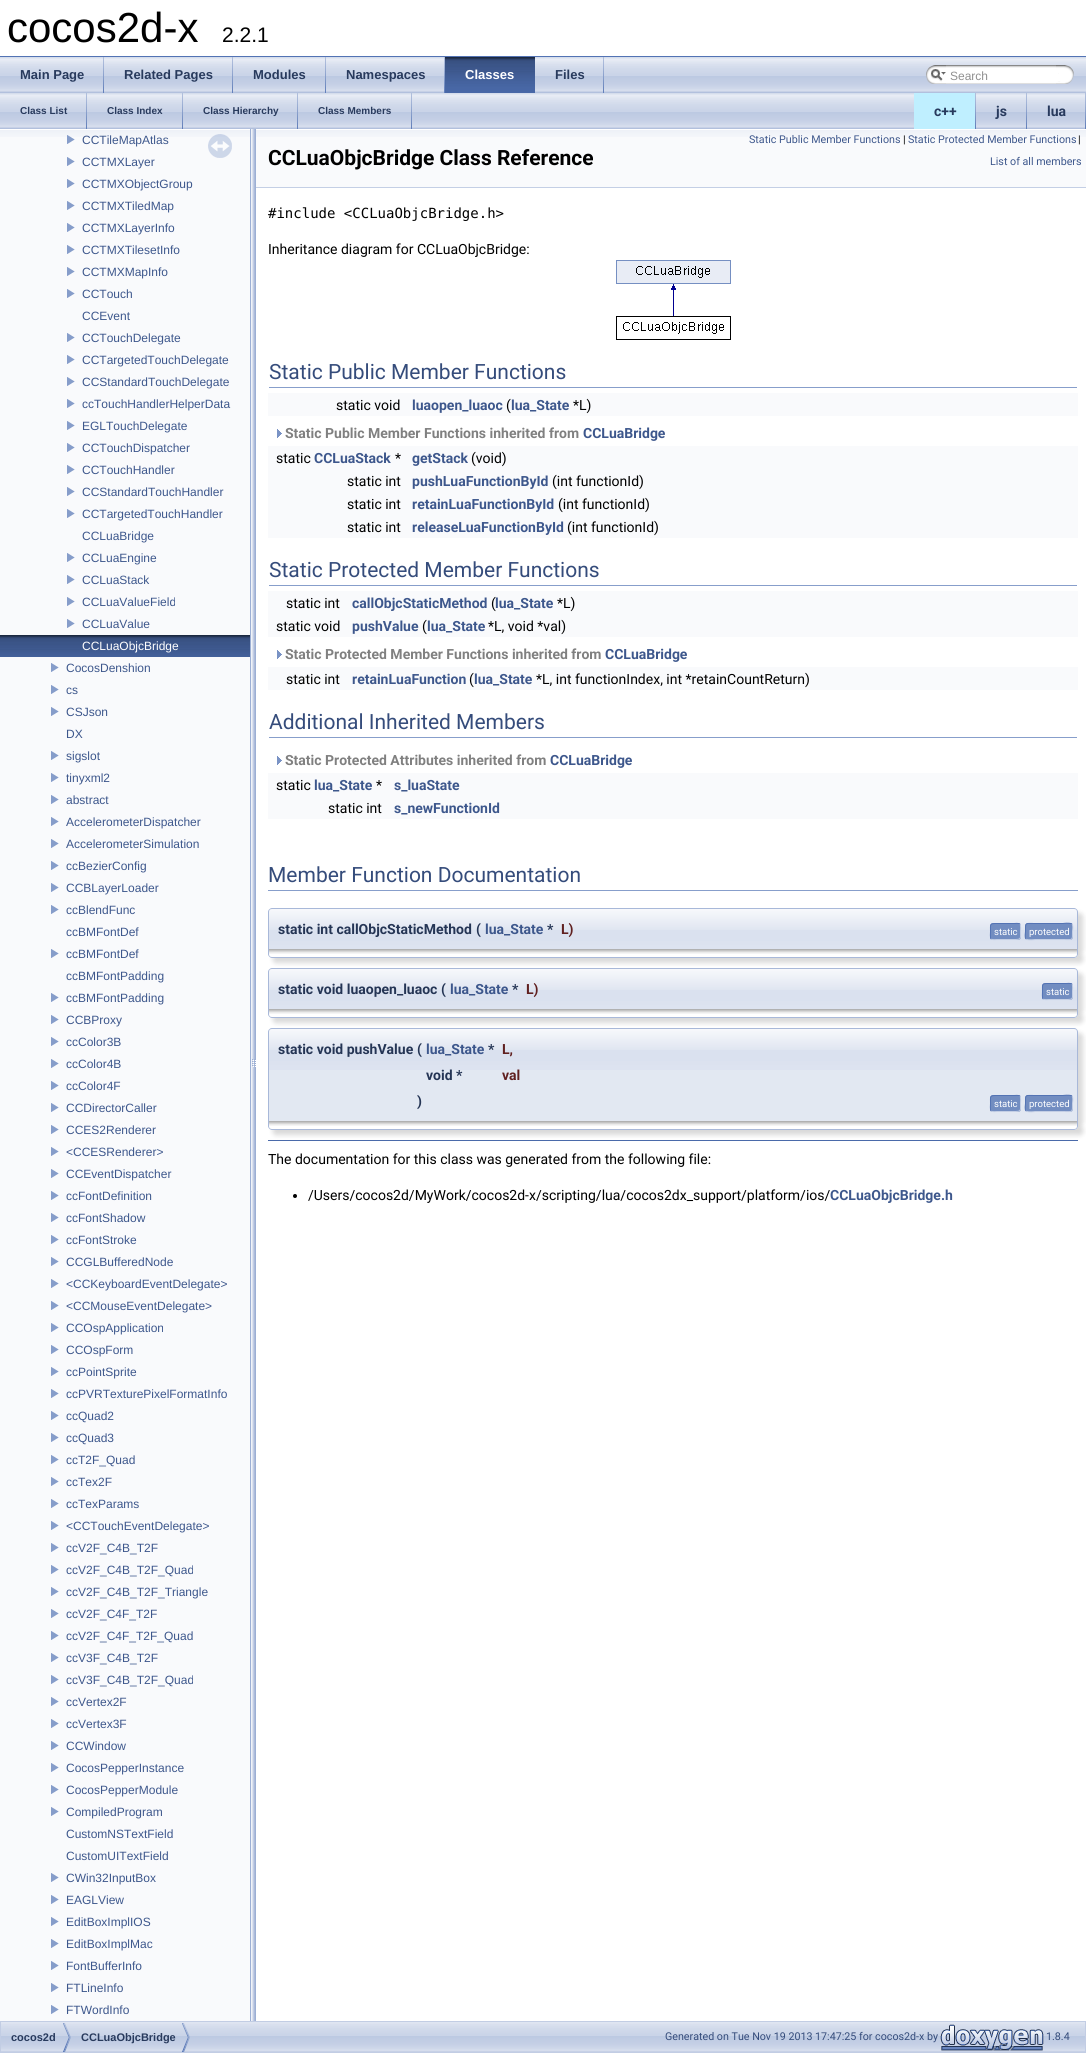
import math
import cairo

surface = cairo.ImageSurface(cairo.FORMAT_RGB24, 1086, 2053)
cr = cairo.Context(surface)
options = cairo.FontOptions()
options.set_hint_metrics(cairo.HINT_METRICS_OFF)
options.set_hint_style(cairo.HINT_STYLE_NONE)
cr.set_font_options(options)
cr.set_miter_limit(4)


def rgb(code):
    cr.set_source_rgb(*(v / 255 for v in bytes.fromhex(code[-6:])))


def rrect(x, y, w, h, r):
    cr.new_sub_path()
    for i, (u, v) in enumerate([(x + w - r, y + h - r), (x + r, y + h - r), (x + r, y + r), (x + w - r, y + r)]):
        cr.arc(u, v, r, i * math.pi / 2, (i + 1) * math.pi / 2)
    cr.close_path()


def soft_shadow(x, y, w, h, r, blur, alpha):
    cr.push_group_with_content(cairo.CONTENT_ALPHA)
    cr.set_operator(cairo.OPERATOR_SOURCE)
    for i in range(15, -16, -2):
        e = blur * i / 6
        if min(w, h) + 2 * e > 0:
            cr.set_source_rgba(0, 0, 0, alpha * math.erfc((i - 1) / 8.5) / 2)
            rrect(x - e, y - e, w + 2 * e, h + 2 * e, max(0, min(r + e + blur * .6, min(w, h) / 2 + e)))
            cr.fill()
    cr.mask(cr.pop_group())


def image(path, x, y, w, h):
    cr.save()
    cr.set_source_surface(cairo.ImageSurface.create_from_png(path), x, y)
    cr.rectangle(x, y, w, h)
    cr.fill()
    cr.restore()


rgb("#ffffff")
cr.paint()
rgb("#5373b4")
cr.rectangle(0, 56, 1086, 1)
cr.fill()
image("img/1.png", 0, 57, 1086, 36)
image("img/2.png", 103, 57, 1, 36)
image("img/2.png", 232, 57, 1, 36)
image("img/2.png", 325, 57, 1, 36)
image("img/2.png", 444, 57, 1, 36)
image("img/3.png", 445, 57, 90, 36)
image("img/2.png", 603, 57, 1, 36)
image("img/4.png", 926, 65, 20, 19)
image("img/5.png", 931, 69, 15, 12)
image("img/6.png", 946, 65, 110, 19)
image("img/7.png", 1056, 65, 18, 19)
image("img/8.png", 0, 93, 1085, 36)
image("img/2.png", 86, 93, 1, 36)
image("img/2.png", 182, 93, 1, 36)
image("img/2.png", 297, 93, 1, 36)
image("img/2.png", 411, 93, 1, 36)
rgb("#bfefff")
cr.rectangle(914, 93, 61, 36)
cr.fill()
image("img/2.png", 975, 93, 1, 36)
image("img/2.png", 1026, 93, 1, 36)
image("img/2.png", 1085, 93, 1, 36)
rgb("#f9fafc")
cr.rectangle(0, 137, 250, 1884)
cr.fill()
image("img/9.png", 0, 129, 250, 8)
image("img/10.png", 208, 134, 24, 24)
image("img/11.png", 67, 135, 8, 9)
image("img/12.png", 67, 157, 8, 9)
image("img/12.png", 67, 179, 8, 9)
image("img/12.png", 67, 201, 8, 9)
image("img/12.png", 67, 223, 8, 9)
image("img/12.png", 67, 245, 8, 9)
image("img/12.png", 67, 267, 8, 9)
image("img/12.png", 67, 289, 8, 9)
image("img/12.png", 67, 333, 8, 9)
image("img/12.png", 67, 355, 8, 9)
image("img/12.png", 67, 377, 8, 9)
image("img/12.png", 67, 399, 8, 9)
image("img/12.png", 67, 421, 8, 9)
image("img/12.png", 67, 443, 8, 9)
image("img/12.png", 67, 465, 8, 9)
image("img/12.png", 67, 487, 8, 9)
image("img/12.png", 67, 509, 8, 9)
image("img/12.png", 67, 553, 8, 9)
image("img/12.png", 67, 575, 8, 9)
image("img/12.png", 67, 597, 8, 9)
image("img/12.png", 67, 619, 8, 9)
image("img/13.png", 0, 635, 250, 22)
image("img/12.png", 51, 663, 8, 9)
image("img/12.png", 51, 685, 8, 9)
image("img/12.png", 51, 707, 8, 9)
image("img/12.png", 51, 751, 8, 9)
image("img/12.png", 51, 773, 8, 9)
image("img/12.png", 51, 795, 8, 9)
image("img/12.png", 51, 817, 8, 9)
image("img/12.png", 51, 839, 8, 9)
image("img/12.png", 51, 861, 8, 9)
image("img/12.png", 51, 883, 8, 9)
image("img/12.png", 51, 905, 8, 9)
image("img/12.png", 51, 949, 8, 9)
image("img/12.png", 51, 993, 8, 9)
image("img/12.png", 51, 1015, 8, 9)
image("img/12.png", 51, 1037, 8, 9)
image("img/12.png", 51, 1059, 8, 9)
image("img/12.png", 51, 1081, 8, 9)
image("img/12.png", 51, 1103, 8, 9)
image("img/12.png", 51, 1125, 8, 9)
image("img/12.png", 51, 1147, 8, 9)
image("img/12.png", 51, 1169, 8, 9)
image("img/12.png", 51, 1191, 8, 9)
image("img/12.png", 51, 1213, 8, 9)
image("img/12.png", 51, 1235, 8, 9)
image("img/12.png", 51, 1257, 8, 9)
image("img/12.png", 51, 1279, 8, 9)
image("img/12.png", 51, 1301, 8, 9)
image("img/12.png", 51, 1323, 8, 9)
image("img/12.png", 51, 1345, 8, 9)
image("img/12.png", 51, 1367, 8, 9)
image("img/12.png", 51, 1389, 8, 9)
image("img/12.png", 51, 1411, 8, 9)
image("img/12.png", 51, 1433, 8, 9)
image("img/12.png", 51, 1455, 8, 9)
image("img/12.png", 51, 1477, 8, 9)
image("img/12.png", 51, 1499, 8, 9)
image("img/12.png", 51, 1521, 8, 9)
image("img/12.png", 51, 1543, 8, 9)
image("img/12.png", 51, 1565, 8, 9)
image("img/12.png", 51, 1587, 8, 9)
image("img/12.png", 51, 1609, 8, 9)
image("img/12.png", 51, 1631, 8, 9)
image("img/12.png", 51, 1653, 8, 9)
image("img/12.png", 51, 1675, 8, 9)
image("img/12.png", 51, 1697, 8, 9)
image("img/12.png", 51, 1719, 8, 9)
image("img/12.png", 51, 1741, 8, 9)
image("img/12.png", 51, 1763, 8, 9)
image("img/12.png", 51, 1785, 8, 9)
image("img/12.png", 51, 1807, 8, 9)
image("img/12.png", 51, 1873, 8, 9)
image("img/12.png", 51, 1895, 8, 9)
image("img/12.png", 51, 1917, 8, 9)
image("img/12.png", 51, 1939, 8, 9)
image("img/12.png", 51, 1961, 8, 9)
image("img/12.png", 51, 1983, 8, 9)
image("img/12.png", 51, 2005, 8, 9)
image("img/14.png", 250, 129, 6, 1892)
cr.rectangle(256, 137, 830, 50)
cr.fill()
image("img/15.png", 256, 129, 830, 8)
rgb("#c4cfe5")
cr.rectangle(256, 187, 830, 1)
cr.fill()
image("img/16.png", 616, 260, 115, 80)
rgb("#879ecb")
cr.rectangle(269, 387, 808, 1)
cr.fill()
rgb("#f9fafc")
cr.rectangle(268, 393, 810, 23)
cr.fill()
image("img/17.png", 277, 429, 5, 9)
for x, y, w, h, color in [
    (268, 446, 810, 23, "#f9fafc"),
    (268, 469, 810, 23, "#f9fafc"),
    (268, 492, 810, 23, "#f9fafc"),
    (268, 515, 810, 23, "#f9fafc"),
    (269, 585, 808, 1, "#879ecb"),
    (268, 591, 810, 23, "#f9fafc"),
    (268, 614, 810, 23, "#f9fafc"),
]:
    rgb(color)
    cr.rectangle(x, y, w, h)
    cr.fill()
image("img/17.png", 277, 650, 5, 9)
cr.rectangle(268, 667, 810, 23)
cr.fill()
rgb("#879ecb")
cr.rectangle(269, 737, 808, 1)
cr.fill()
image("img/17.png", 277, 756, 5, 9)
for x, y, w, h, color in [
    (268, 773, 810, 23, "#f9fafc"),
    (268, 796, 810, 23, "#f9fafc"),
    (268, 890, 810, 1, "#879ecb"),
]:
    rgb(color)
    cr.rectangle(x, y, w, h)
    cr.fill()
rgb("#000000")
soft_shadow(273, 913, 810, 41, 4, 2.5, 0.15)
image("img/18.png", 268, 909, 810, 40)
rgb("#a8b8d9")
cr.set_fill_rule(cairo.FILL_RULE_EVEN_ODD)
cr.new_path()
cr.move_to(272, 908)
cr.line_to(1074, 908)
cr.curve_to(1076, 908, 1078, 910, 1078, 912)
cr.line_to(1078, 949)
cr.line_to(268, 949)
cr.line_to(268, 912)
cr.curve_to(268, 910, 270, 908, 272, 908)
cr.close_path()
cr.move_to(272, 909)
cr.line_to(1074, 909)
cr.curve_to(1076, 909, 1077, 910, 1077, 912)
cr.line_to(1077, 949)
cr.line_to(269, 949)
cr.line_to(269, 912)
cr.curve_to(269, 910, 270, 909, 272, 909)
cr.close_path()
cr.fill()
rgb("#728dc1")
rrect(990, 923, 31, 17, 3)
cr.fill()
cr.new_path()
cr.move_to(1020, 924)
cr.curve_to(1021, 925.5, 1020.5, 930, 1020.5, 931.5)
cr.curve_to(1020.5, 939, 1021.5, 939.5, 1014, 939.5)
cr.line_to(997, 939.5)
cr.curve_to(996, 939.5, 992.5, 940, 991, 939)
rgb("#c4cfe5")
cr.set_line_width(1)
cr.stroke()
cr.new_path()
cr.move_to(991, 939)
cr.curve_to(990, 937.5, 990.5, 933, 990.5, 931.5)
cr.curve_to(990.5, 924, 989.5, 923.5, 997, 923.5)
cr.line_to(1014, 923.5)
cr.curve_to(1015, 923.5, 1018.5, 923, 1020, 924)
rgb("#5373b4")
cr.stroke()
rgb("#728dc1")
rrect(1025, 923, 48, 17, 3)
cr.fill()
cr.new_path()
cr.move_to(1072, 924)
cr.curve_to(1073.5, 926, 1072.5, 929.5, 1072.5, 931.5)
cr.curve_to(1072.5, 941, 1073, 939.5, 1063, 939.5)
cr.line_to(1035, 939.5)
cr.curve_to(1035, 939.5, 1028, 940.5, 1026, 939)
rgb("#c4cfe5")
cr.stroke()
cr.new_path()
cr.move_to(1026, 939)
cr.curve_to(1024.5, 937, 1025.5, 933.5, 1025.5, 931.5)
cr.curve_to(1025.5, 922, 1025, 923.5, 1035, 923.5)
cr.line_to(1063, 923.5)
cr.curve_to(1063, 923.5, 1070, 922.5, 1072, 924)
rgb("#5373b4")
cr.stroke()
rgb("#000000")
soft_shadow(273, 954, 810, 9, 4, 2.5, 0.15)
rgb("#ffffff")
cr.new_path()
cr.move_to(268, 949)
cr.line_to(1078, 949)
cr.line_to(1078, 954)
cr.curve_to(1078, 956, 1076, 958, 1074, 958)
cr.line_to(272, 958)
cr.curve_to(270, 958, 268, 956, 268, 954)
cr.close_path()
cr.fill()
image("img/19.png", 269, 949, 808, 5)
rgb("#a8b8d9")
cr.new_path()
cr.move_to(268, 949)
cr.line_to(1078, 949)
cr.line_to(1078, 954)
cr.curve_to(1078, 956, 1076, 958, 1074, 958)
cr.line_to(272, 958)
cr.curve_to(270, 958, 268, 956, 268, 954)
cr.close_path()
cr.move_to(269, 949)
cr.line_to(1077, 949)
cr.line_to(1077, 954)
cr.curve_to(1077, 956, 1076, 957, 1074, 957)
cr.line_to(272, 957)
cr.curve_to(270, 957, 269, 956, 269, 954)
cr.close_path()
cr.fill()
rgb("#000000")
soft_shadow(273, 973, 810, 41, 4, 2.5, 0.15)
image("img/20.png", 268, 969, 810, 40)
rgb("#a8b8d9")
cr.new_path()
cr.move_to(272, 968)
cr.line_to(1074, 968)
cr.curve_to(1076, 968, 1078, 970, 1078, 972)
cr.line_to(1078, 1009)
cr.line_to(268, 1009)
cr.line_to(268, 972)
cr.curve_to(268, 970, 270, 968, 272, 968)
cr.close_path()
cr.move_to(272, 969)
cr.line_to(1074, 969)
cr.curve_to(1076, 969, 1077, 970, 1077, 972)
cr.line_to(1077, 1009)
cr.line_to(269, 1009)
cr.line_to(269, 972)
cr.curve_to(269, 970, 270, 969, 272, 969)
cr.close_path()
cr.fill()
rgb("#728dc1")
rrect(1042, 983, 31, 17, 3)
cr.fill()
cr.new_path()
cr.move_to(1072, 984)
cr.curve_to(1073, 985.5, 1072.5, 990, 1072.5, 991.5)
cr.curve_to(1072.5, 999, 1073.5, 999.5, 1066, 999.5)
cr.line_to(1049, 999.5)
cr.curve_to(1048, 999.5, 1044.5, 1000, 1043, 999)
rgb("#c4cfe5")
cr.stroke()
cr.new_path()
cr.move_to(1043, 999)
cr.curve_to(1042, 997.5, 1042.5, 993, 1042.5, 991.5)
cr.curve_to(1042.5, 984, 1041.5, 983.5, 1049, 983.5)
cr.line_to(1066, 983.5)
cr.curve_to(1067, 983.5, 1070.5, 983, 1072, 984)
rgb("#5373b4")
cr.stroke()
rgb("#000000")
soft_shadow(273, 1014, 810, 9, 4, 2.5, 0.15)
rgb("#ffffff")
cr.new_path()
cr.move_to(268, 1009)
cr.line_to(1078, 1009)
cr.line_to(1078, 1014)
cr.curve_to(1078, 1016, 1076, 1018, 1074, 1018)
cr.line_to(272, 1018)
cr.curve_to(270, 1018, 268, 1016, 268, 1014)
cr.close_path()
cr.fill()
image("img/19.png", 269, 1009, 808, 5)
rgb("#a8b8d9")
cr.new_path()
cr.move_to(268, 1009)
cr.line_to(1078, 1009)
cr.line_to(1078, 1014)
cr.curve_to(1078, 1016, 1076, 1018, 1074, 1018)
cr.line_to(272, 1018)
cr.curve_to(270, 1018, 268, 1016, 268, 1014)
cr.close_path()
cr.move_to(269, 1009)
cr.line_to(1077, 1009)
cr.line_to(1077, 1014)
cr.curve_to(1077, 1016, 1076, 1017, 1074, 1017)
cr.line_to(272, 1017)
cr.curve_to(270, 1017, 269, 1016, 269, 1014)
cr.close_path()
cr.fill()
rgb("#000000")
soft_shadow(273, 1033, 810, 93, 4, 2.5, 0.15)
rgb("#e2e8f2")
cr.new_path()
cr.move_to(272, 1028)
cr.line_to(1074, 1028)
cr.curve_to(1076, 1028, 1078, 1030, 1078, 1032)
cr.line_to(1078, 1121)
cr.line_to(268, 1121)
cr.line_to(268, 1032)
cr.curve_to(268, 1030, 270, 1028, 272, 1028)
cr.close_path()
cr.fill()
image("img/21.png", 268, 1029, 810, 41)
rgb("#a8b8d9")
cr.new_path()
cr.move_to(272, 1028)
cr.line_to(1074, 1028)
cr.curve_to(1076, 1028, 1078, 1030, 1078, 1032)
cr.line_to(1078, 1121)
cr.line_to(268, 1121)
cr.line_to(268, 1032)
cr.curve_to(268, 1030, 270, 1028, 272, 1028)
cr.close_path()
cr.move_to(272, 1029)
cr.line_to(1074, 1029)
cr.curve_to(1076, 1029, 1077, 1030, 1077, 1032)
cr.line_to(1077, 1121)
cr.line_to(269, 1121)
cr.line_to(269, 1032)
cr.curve_to(269, 1030, 270, 1029, 272, 1029)
cr.close_path()
cr.fill()
rgb("#728dc1")
rrect(990, 1095, 31, 17, 3)
cr.fill()
cr.new_path()
cr.move_to(1020, 1096)
cr.curve_to(1021, 1097.5, 1020.5, 1102, 1020.5, 1103.5)
cr.curve_to(1020.5, 1111, 1021.5, 1111.5, 1014, 1111.5)
cr.line_to(997, 1111.5)
cr.curve_to(996, 1111.5, 992.5, 1112, 991, 1111)
rgb("#c4cfe5")
cr.stroke()
cr.new_path()
cr.move_to(991, 1111)
cr.curve_to(990, 1109.5, 990.5, 1105, 990.5, 1103.5)
cr.curve_to(990.5, 1096, 989.5, 1095.5, 997, 1095.5)
cr.line_to(1014, 1095.5)
cr.curve_to(1015, 1095.5, 1018.5, 1095, 1020, 1096)
rgb("#5373b4")
cr.stroke()
rgb("#728dc1")
rrect(1025, 1095, 48, 17, 3)
cr.fill()
cr.new_path()
cr.move_to(1072, 1096)
cr.curve_to(1073.5, 1098, 1072.5, 1101.5, 1072.5, 1103.5)
cr.curve_to(1072.5, 1113, 1073, 1111.5, 1063, 1111.5)
cr.line_to(1035, 1111.5)
cr.curve_to(1035, 1111.5, 1028, 1112.5, 1026, 1111)
rgb("#c4cfe5")
cr.stroke()
cr.new_path()
cr.move_to(1026, 1111)
cr.curve_to(1024.5, 1109, 1025.5, 1105.5, 1025.5, 1103.5)
cr.curve_to(1025.5, 1094, 1025, 1095.5, 1035, 1095.5)
cr.line_to(1063, 1095.5)
cr.curve_to(1063, 1095.5, 1070, 1094.5, 1072, 1096)
rgb("#5373b4")
cr.stroke()
rgb("#000000")
soft_shadow(273, 1126, 810, 9, 4, 2.5, 0.15)
rgb("#ffffff")
cr.new_path()
cr.move_to(268, 1121)
cr.line_to(1078, 1121)
cr.line_to(1078, 1126)
cr.curve_to(1078, 1128, 1076, 1130, 1074, 1130)
cr.line_to(272, 1130)
cr.curve_to(270, 1130, 268, 1128, 268, 1126)
cr.close_path()
cr.fill()
image("img/19.png", 269, 1121, 808, 5)
rgb("#a8b8d9")
cr.new_path()
cr.move_to(268, 1121)
cr.line_to(1078, 1121)
cr.line_to(1078, 1126)
cr.curve_to(1078, 1128, 1076, 1130, 1074, 1130)
cr.line_to(272, 1130)
cr.curve_to(270, 1130, 268, 1128, 268, 1126)
cr.close_path()
cr.move_to(269, 1121)
cr.line_to(1077, 1121)
cr.line_to(1077, 1126)
cr.curve_to(1077, 1128, 1076, 1129, 1074, 1129)
cr.line_to(272, 1129)
cr.curve_to(270, 1129, 269, 1128, 269, 1126)
cr.close_path()
cr.fill()
rgb("#4a6aaa")
cr.rectangle(268, 1140, 810, 1)
cr.fill()
rgb("#000000")
cr.arc(295, 1196, 2, 0, 2 * math.pi)
cr.fill()
image("img/22.png", 1, 2022, 1084, 30)
cr.rectangle(0.5, 2021.5, 1085, 31)
rgb("#c2cde4")
cr.stroke()
image("img/23.png", 63, 2023, 8, 29)
image("img/23.png", 182, 2023, 8, 29)
image("img/24.png", 940, 2024, 104, 27)
cr.select_font_face("Liberation Sans")
cr.set_font_size(42)
rgb("#000000")
cr.move_to(7, 42)
cr.show_text("cocos2d-x")
cr.set_font_size(21)
cr.move_to(222, 42)
cr.show_text("2.2.1")
cr.select_font_face("Liberation Sans", cairo.FONT_SLANT_NORMAL, cairo.FONT_WEIGHT_BOLD)
cr.set_font_size(13)
rgb("#283a5d")
for x, y, s in [
    (20, 79, "Main Page"),
    (124, 79, "Related Pages"),
    (253, 79, "Modules"),
    (346, 79, "Namespaces"),
]:
    cr.move_to(x, y)
    cr.show_text(s)
rgb("#ffffff")
cr.move_to(465, 79)
cr.show_text("Classes")
rgb("#283a5d")
cr.move_to(555, 79)
cr.show_text("Files")
cr.select_font_face("Liberation Sans")
cr.set_font_size(12)
rgb("#909090")
cr.move_to(950, 80)
cr.show_text("Search")
cr.select_font_face("Liberation Sans", cairo.FONT_SLANT_NORMAL, cairo.FONT_WEIGHT_BOLD)
cr.set_font_size(10)
rgb("#283a5d")
for x, y, s in [
    (20, 114, "Class List"),
    (107, 114, "Class Index"),
    (203, 114, "Class Hierarchy"),
    (318, 114, "Class Members"),
]:
    cr.move_to(x, y)
    cr.show_text(s)
cr.select_font_face("Roboto", cairo.FONT_SLANT_NORMAL, cairo.FONT_WEIGHT_BOLD)
cr.set_font_size(14)
for x, y, s in [
    (934, 116, "c++"),
    (996, 116, "js"),
    (1047, 116, "lua"),
]:
    cr.move_to(x, y)
    cr.show_text(s)
cr.select_font_face("Liberation Sans")
cr.set_font_size(12)
rgb("#3d578c")
for x, y, s in [
    (82, 144, "CCTileMapAtlas"),
    (82, 166, "CCTMXLayer"),
    (82, 188, "CCTMXObjectGroup"),
    (82, 210, "CCTMXTiledMap"),
    (82, 232, "CCTMXLayerInfo"),
    (82, 254, "CCTMXTilesetInfo"),
    (82, 276, "CCTMXMapInfo"),
    (82, 298, "CCTouch"),
    (82, 320, "CCEvent"),
    (82, 342, "CCTouchDelegate"),
    (82, 364, "CCTargetedTouchDelegate"),
    (82, 386, "CCStandardTouchDelegate"),
    (82, 408, "ccTouchHandlerHelperData"),
    (82, 430, "EGLTouchDelegate"),
    (82, 452, "CCTouchDispatcher"),
    (82, 474, "CCTouchHandler"),
    (82, 496, "CCStandardTouchHandler"),
    (82, 518, "CCTargetedTouchHandler"),
    (82, 540, "CCLuaBridge"),
    (82, 562, "CCLuaEngine"),
    (82, 584, "CCLuaStack"),
    (82, 606, "CCLuaValueField"),
    (82, 628, "CCLuaValue"),
]:
    cr.move_to(x, y)
    cr.show_text(s)
rgb("#ffffff")
cr.move_to(82, 650)
cr.show_text("CCLuaObjcBridge")
rgb("#3d578c")
for x, y, s in [
    (66, 672, "CocosDenshion"),
    (66, 694, "cs"),
    (66, 716, "CSJson"),
    (66, 738, "DX"),
    (66, 760, "sigslot"),
    (66, 782, "tinyxml2"),
    (66, 804, "abstract"),
    (66, 826, "AccelerometerDispatcher"),
    (66, 848, "AccelerometerSimulation"),
    (66, 870, "ccBezierConfig"),
    (66, 892, "CCBLayerLoader"),
    (66, 914, "ccBlendFunc"),
    (66, 936, "ccBMFontDef"),
    (66, 958, "ccBMFontDef"),
    (66, 980, "ccBMFontPadding"),
    (66, 1002, "ccBMFontPadding"),
    (66, 1024, "CCBProxy"),
    (66, 1046, "ccColor3B"),
    (66, 1068, "ccColor4B"),
    (66, 1090, "ccColor4F"),
    (66, 1112, "CCDirectorCaller"),
    (66, 1134, "CCES2Renderer"),
    (66, 1156, "<CCESRenderer>"),
    (66, 1178, "CCEventDispatcher"),
    (66, 1200, "ccFontDefinition"),
    (66, 1222, "ccFontShadow"),
    (66, 1244, "ccFontStroke"),
    (66, 1266, "CCGLBufferedNode"),
    (66, 1288, "<CCKeyboardEventDelegate>"),
    (66, 1310, "<CCMouseEventDelegate>"),
    (66, 1332, "CCOspApplication"),
    (66, 1354, "CCOspForm"),
    (66, 1376, "ccPointSprite"),
    (66, 1398, "ccPVRTexturePixelFormatInfo"),
    (66, 1420, "ccQuad2"),
    (66, 1442, "ccQuad3"),
    (66, 1464, "ccT2F_Quad"),
    (66, 1486, "ccTex2F"),
    (66, 1508, "ccTexParams"),
    (66, 1530, "<CCTouchEventDelegate>"),
    (66, 1552, "ccV2F_C4B_T2F"),
    (66, 1574, "ccV2F_C4B_T2F_Quad"),
    (66, 1596, "ccV2F_C4B_T2F_Triangle"),
    (66, 1618, "ccV2F_C4F_T2F"),
    (66, 1640, "ccV2F_C4F_T2F_Quad"),
    (66, 1662, "ccV3F_C4B_T2F"),
    (66, 1684, "ccV3F_C4B_T2F_Quad"),
    (66, 1706, "ccVertex2F"),
    (66, 1728, "ccVertex3F"),
    (66, 1750, "CCWindow"),
    (66, 1772, "CocosPepperInstance"),
    (66, 1794, "CocosPepperModule"),
    (66, 1816, "CompiledProgram"),
    (66, 1838, "CustomNSTextField"),
    (66, 1860, "CustomUITextField"),
    (66, 1882, "CWin32InputBox"),
    (66, 1904, "EAGLView"),
    (66, 1926, "EditBoxImplIOS"),
    (66, 1948, "EditBoxImplMac"),
    (66, 1970, "FontBufferInfo"),
    (66, 1992, "FTLineInfo"),
    (66, 2014, "FTWordInfo"),
]:
    cr.move_to(x, y)
    cr.show_text(s)
cr.select_font_face("Roboto", cairo.FONT_SLANT_NORMAL, cairo.FONT_WEIGHT_BOLD)
cr.set_font_size(21)
rgb("#000000")
cr.move_to(268, 165)
cr.show_text("CCLuaObjcBridge Class Reference")
cr.select_font_face("Roboto")
cr.set_font_size(10.7)
rgb("#3d578c")
cr.move_to(749, 143)
cr.show_text("Static Public Member Functions")
rgb("#000000")
cr.move_to(903, 143)
cr.show_text("|")
rgb("#3d578c")
cr.move_to(908, 143)
cr.show_text("Static Protected Member Functions")
rgb("#000000")
cr.move_to(1078, 143)
cr.show_text("|")
rgb("#3d578c")
cr.move_to(990, 165)
cr.show_text("List of all members")
cr.select_font_face("DejaVu Sans Mono")
cr.set_font_size(14)
rgb("#000000")
cr.move_to(268, 218)
cr.show_text("#include <CCLuaObjcBridge.h>")
cr.select_font_face("Roboto")
cr.move_to(268, 254)
cr.show_text("Inheritance diagram for CCLuaObjcBridge:")
cr.set_font_size(21)
rgb("#354c7b")
cr.move_to(269, 379)
cr.show_text("Static Public Member Functions")
cr.set_font_size(14)
rgb("#000000")
cr.move_to(336, 410)
cr.show_text("static void")
cr.select_font_face("Roboto", cairo.FONT_SLANT_NORMAL, cairo.FONT_WEIGHT_BOLD)
rgb("#3d578c")
cr.move_to(412, 410)
cr.show_text("luaopen_luaoc")
cr.select_font_face("Roboto")
rgb("#000000")
cr.move_to(506, 410)
cr.show_text("(")
cr.select_font_face("Roboto", cairo.FONT_SLANT_NORMAL, cairo.FONT_WEIGHT_BOLD)
rgb("#3d578c")
cr.move_to(511, 410)
cr.show_text("lua_State")
cr.select_font_face("Roboto")
rgb("#000000")
cr.move_to(573, 410)
cr.show_text("*L)")
cr.select_font_face("Roboto", cairo.FONT_SLANT_NORMAL, cairo.FONT_WEIGHT_BOLD)
rgb("#808080")
cr.move_to(285, 438)
cr.show_text("Static Public Member Functions inherited from")
rgb("#3d578c")
cr.move_to(583, 438)
cr.show_text("CCLuaBridge")
cr.select_font_face("Roboto")
rgb("#000000")
cr.move_to(276, 463)
cr.show_text("static")
cr.select_font_face("Roboto", cairo.FONT_SLANT_NORMAL, cairo.FONT_WEIGHT_BOLD)
rgb("#3d578c")
cr.move_to(314, 463)
cr.show_text("CCLuaStack")
cr.select_font_face("Roboto")
rgb("#000000")
cr.move_to(395, 463)
cr.show_text("*")
cr.select_font_face("Roboto", cairo.FONT_SLANT_NORMAL, cairo.FONT_WEIGHT_BOLD)
rgb("#3d578c")
cr.move_to(412, 463)
cr.show_text("getStack")
cr.select_font_face("Roboto")
rgb("#000000")
cr.move_to(471, 463)
cr.show_text("(void)")
cr.move_to(347, 486)
cr.show_text("static int")
cr.select_font_face("Roboto", cairo.FONT_SLANT_NORMAL, cairo.FONT_WEIGHT_BOLD)
rgb("#3d578c")
cr.move_to(412, 486)
cr.show_text("pushLuaFunctionById")
cr.select_font_face("Roboto")
rgb("#000000")
cr.move_to(552, 486)
cr.show_text("(int functionId)")
cr.move_to(347, 509)
cr.show_text("static int")
cr.select_font_face("Roboto", cairo.FONT_SLANT_NORMAL, cairo.FONT_WEIGHT_BOLD)
rgb("#3d578c")
cr.move_to(412, 509)
cr.show_text("retainLuaFunctionById")
cr.select_font_face("Roboto")
rgb("#000000")
cr.move_to(558, 509)
cr.show_text("(int functionId)")
cr.move_to(347, 532)
cr.show_text("static int")
cr.select_font_face("Roboto", cairo.FONT_SLANT_NORMAL, cairo.FONT_WEIGHT_BOLD)
rgb("#3d578c")
cr.move_to(412, 532)
cr.show_text("releaseLuaFunctionById")
cr.select_font_face("Roboto")
rgb("#000000")
cr.move_to(567, 532)
cr.show_text("(int functionId)")
cr.set_font_size(21)
rgb("#354c7b")
cr.move_to(269, 577)
cr.show_text("Static Protected Member Functions")
cr.set_font_size(14)
rgb("#000000")
cr.move_to(286, 608)
cr.show_text("static int")
cr.select_font_face("Roboto", cairo.FONT_SLANT_NORMAL, cairo.FONT_WEIGHT_BOLD)
rgb("#3d578c")
cr.move_to(352, 608)
cr.show_text("callObjcStaticMethod")
cr.select_font_face("Roboto")
rgb("#000000")
cr.move_to(491, 608)
cr.show_text("(")
cr.select_font_face("Roboto", cairo.FONT_SLANT_NORMAL, cairo.FONT_WEIGHT_BOLD)
rgb("#3d578c")
cr.move_to(495, 608)
cr.show_text("lua_State")
cr.select_font_face("Roboto")
rgb("#000000")
cr.move_to(557, 608)
cr.show_text("*L)")
cr.move_to(276, 631)
cr.show_text("static void")
cr.select_font_face("Roboto", cairo.FONT_SLANT_NORMAL, cairo.FONT_WEIGHT_BOLD)
rgb("#3d578c")
cr.move_to(352, 631)
cr.show_text("pushValue")
cr.select_font_face("Roboto")
rgb("#000000")
cr.move_to(422, 631)
cr.show_text("(")
cr.select_font_face("Roboto", cairo.FONT_SLANT_NORMAL, cairo.FONT_WEIGHT_BOLD)
rgb("#3d578c")
cr.move_to(427, 631)
cr.show_text("lua_State")
cr.select_font_face("Roboto")
rgb("#000000")
cr.move_to(488, 631)
cr.show_text("*L, void *val)")
cr.select_font_face("Roboto", cairo.FONT_SLANT_NORMAL, cairo.FONT_WEIGHT_BOLD)
rgb("#808080")
cr.move_to(285, 659)
cr.show_text("Static Protected Member Functions inherited from")
rgb("#3d578c")
cr.move_to(605, 659)
cr.show_text("CCLuaBridge")
cr.select_font_face("Roboto")
rgb("#000000")
cr.move_to(286, 684)
cr.show_text("static int")
cr.select_font_face("Roboto", cairo.FONT_SLANT_NORMAL, cairo.FONT_WEIGHT_BOLD)
rgb("#3d578c")
cr.move_to(352, 684)
cr.show_text("retainLuaFunction")
cr.select_font_face("Roboto")
rgb("#000000")
cr.move_to(469, 684)
cr.show_text("(")
cr.select_font_face("Roboto", cairo.FONT_SLANT_NORMAL, cairo.FONT_WEIGHT_BOLD)
rgb("#3d578c")
cr.move_to(474, 684)
cr.show_text("lua_State")
cr.select_font_face("Roboto")
rgb("#000000")
cr.move_to(536, 684)
cr.show_text("*L, int functionIndex, int *retainCountReturn)")
cr.set_font_size(21)
rgb("#354c7b")
cr.move_to(269, 729)
cr.show_text("Additional Inherited Members")
cr.select_font_face("Roboto", cairo.FONT_SLANT_NORMAL, cairo.FONT_WEIGHT_BOLD)
cr.set_font_size(14)
rgb("#808080")
cr.move_to(285, 765)
cr.show_text("Static Protected Attributes inherited from")
rgb("#3d578c")
cr.move_to(550, 765)
cr.show_text("CCLuaBridge")
cr.select_font_face("Roboto")
rgb("#000000")
cr.move_to(276, 790)
cr.show_text("static")
cr.select_font_face("Roboto", cairo.FONT_SLANT_NORMAL, cairo.FONT_WEIGHT_BOLD)
rgb("#3d578c")
cr.move_to(314, 790)
cr.show_text("lua_State")
cr.select_font_face("Roboto")
rgb("#000000")
cr.move_to(376, 790)
cr.show_text("*")
cr.select_font_face("Roboto", cairo.FONT_SLANT_NORMAL, cairo.FONT_WEIGHT_BOLD)
rgb("#3d578c")
cr.move_to(394, 790)
cr.show_text("s_luaState")
cr.select_font_face("Roboto")
rgb("#000000")
cr.move_to(328, 813)
cr.show_text("static int")
cr.select_font_face("Roboto", cairo.FONT_SLANT_NORMAL, cairo.FONT_WEIGHT_BOLD)
rgb("#3d578c")
cr.move_to(394, 813)
cr.show_text("s_newFunctionId")
cr.select_font_face("Roboto")
cr.set_font_size(21)
rgb("#354c7b")
cr.move_to(268, 882)
cr.show_text("Member Function Documentation")
cr.select_font_face("Roboto", cairo.FONT_SLANT_NORMAL, cairo.FONT_WEIGHT_BOLD)
cr.set_font_size(14)
rgb("#253555")
cr.move_to(278, 934)
cr.show_text("static int callObjcStaticMethod")
cr.move_to(476, 934)
cr.show_text("(")
rgb("#3d578c")
cr.move_to(485, 934)
cr.show_text("lua_State")
rgb("#253555")
cr.move_to(547, 934)
cr.show_text("*")
rgb("#602020")
cr.move_to(561, 934)
cr.show_text("L)")
cr.select_font_face("Roboto")
cr.set_font_size(9.5)
rgb("#ffffff")
cr.move_to(994, 935)
cr.show_text("static")
cr.move_to(1029, 935)
cr.show_text("protected")
cr.select_font_face("Roboto", cairo.FONT_SLANT_NORMAL, cairo.FONT_WEIGHT_BOLD)
cr.set_font_size(14)
rgb("#253555")
cr.move_to(278, 994)
cr.show_text("static void luaopen_luaoc")
cr.move_to(441, 994)
cr.show_text("(")
rgb("#3d578c")
cr.move_to(450, 994)
cr.show_text("lua_State")
rgb("#253555")
cr.move_to(512, 994)
cr.show_text("*")
rgb("#602020")
cr.move_to(526, 994)
cr.show_text("L)")
cr.select_font_face("Roboto")
cr.set_font_size(9.5)
rgb("#ffffff")
cr.move_to(1046, 995)
cr.show_text("static")
cr.select_font_face("Roboto", cairo.FONT_SLANT_NORMAL, cairo.FONT_WEIGHT_BOLD)
cr.set_font_size(14)
rgb("#253555")
cr.move_to(278, 1054)
cr.show_text("static void pushValue")
cr.move_to(417, 1054)
cr.show_text("(")
rgb("#3d578c")
cr.move_to(426, 1054)
cr.show_text("lua_State")
rgb("#253555")
cr.move_to(488, 1054)
cr.show_text("*")
rgb("#602020")
cr.move_to(502, 1054)
cr.show_text("L,")
rgb("#253555")
cr.move_to(426, 1080)
cr.show_text("void *")
rgb("#602020")
cr.move_to(502, 1080)
cr.show_text("val")
rgb("#253555")
cr.move_to(417, 1106)
cr.show_text(")")
cr.select_font_face("Roboto")
cr.set_font_size(9.5)
rgb("#ffffff")
cr.move_to(994, 1107)
cr.show_text("static")
cr.move_to(1029, 1107)
cr.show_text("protected")
cr.set_font_size(14)
rgb("#000000")
cr.move_to(268, 1164)
cr.show_text("The documentation for this class was generated from the following file:")
cr.move_to(308, 1200)
cr.show_text("/Users/cocos2d/MyWork/cocos2d-x/scripting/lua/cocos2dx_support/platform/ios/")
cr.select_font_face("Roboto", cairo.FONT_SLANT_NORMAL, cairo.FONT_WEIGHT_BOLD)
rgb("#3d578c")
cr.move_to(830, 1200)
cr.show_text("CCLuaObjcBridge.h")
cr.select_font_face("Liberation Sans", cairo.FONT_SLANT_NORMAL, cairo.FONT_WEIGHT_BOLD)
cr.set_font_size(11)
rgb("#283a5d")
cr.move_to(11, 2041)
cr.show_text("cocos2d")
cr.move_to(81, 2041)
cr.show_text("CCLuaObjcBridge")
cr.select_font_face("Roboto")
cr.set_font_size(10.7)
rgb("#354c7b")
cr.move_to(665, 2040)
cr.show_text("Generated on Tue Nov 19 2013 17:47:25 for cocos2d-x by")
cr.move_to(1046, 2040)
cr.show_text("1.8.4")
surface.write_to_png("page.png")
